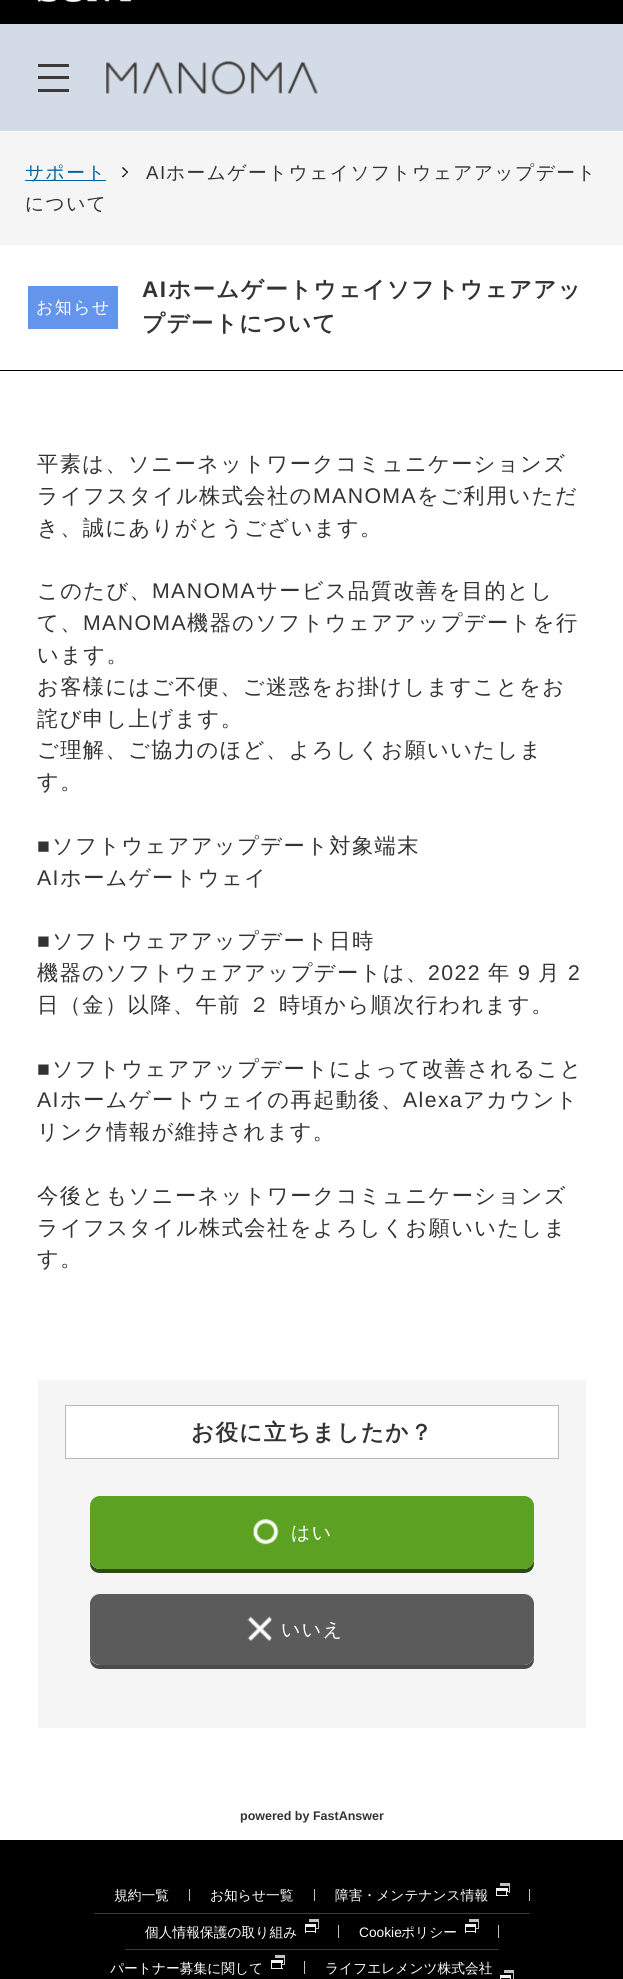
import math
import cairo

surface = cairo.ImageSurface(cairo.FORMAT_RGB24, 623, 1979)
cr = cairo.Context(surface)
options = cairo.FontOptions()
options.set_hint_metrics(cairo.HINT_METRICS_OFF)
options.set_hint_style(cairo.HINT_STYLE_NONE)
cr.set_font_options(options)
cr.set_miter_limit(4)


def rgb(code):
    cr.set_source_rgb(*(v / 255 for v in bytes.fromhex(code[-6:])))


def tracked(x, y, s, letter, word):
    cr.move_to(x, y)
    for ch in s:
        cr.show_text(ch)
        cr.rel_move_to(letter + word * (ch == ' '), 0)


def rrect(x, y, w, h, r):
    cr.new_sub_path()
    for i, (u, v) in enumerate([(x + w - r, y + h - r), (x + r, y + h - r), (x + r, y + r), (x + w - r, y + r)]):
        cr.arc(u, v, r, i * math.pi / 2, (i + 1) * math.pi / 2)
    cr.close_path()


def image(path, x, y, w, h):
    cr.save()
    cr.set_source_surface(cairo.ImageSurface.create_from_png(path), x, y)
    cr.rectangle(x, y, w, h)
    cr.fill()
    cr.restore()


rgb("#ffffff")
cr.paint()
rgb("#000000")
cr.rectangle(0, 0, 623, 24)
cr.fill()
image("img/1.png", 37, 0, 94, 3)
for x, y, w, h, color in [
    (0, 24, 623, 107, "#d3dbe6"),
    (38, 64, 31, 3, "#3e3a39"),
    (38, 76, 31, 3, "#3e3a39"),
    (38, 89, 31, 3, "#3e3a39"),
]:
    rgb(color)
    cr.rectangle(x, y, w, h)
    cr.fill()
image("img/2.png", 106, 61, 212, 34)
rgb("#f5f5f5")
cr.rectangle(0, 132, 623, 113)
cr.fill()
rgb("#0064a0")
cr.rectangle(25, 180, 81, 1)
cr.fill()
rgb("#000000")
cr.new_path()
cr.move_to(123, 167)
cr.line_to(128, 172)
cr.line_to(127.5, 173)
cr.line_to(122, 168)
cr.close_path()
cr.fill()
cr.new_path()
cr.move_to(127.5, 171.5)
cr.line_to(128, 172)
cr.line_to(123, 177.5)
cr.line_to(122, 176.5)
cr.close_path()
cr.fill()
for x, y, w, h, color in [
    (0, 370, 623, 1, "#000000"),
    (28, 286, 90, 43, "#6495ed"),
    (38, 1380, 548, 348, "#f5f5f5"),
]:
    rgb(color)
    cr.rectangle(x, y, w, h)
    cr.fill()
rgb("#ffffff")
cr.rectangle(65.5, 1405.5, 493, 53)
cr.fill_preserve()
rgb("#b6b6b6")
cr.set_line_width(1)
cr.stroke()
rgb("#2e4a16")
cr.new_path()
cr.move_to(90, 1559)
cr.line_to(90, 1563)
cr.curve_to(90, 1569, 94, 1573, 100, 1573)
cr.line_to(524, 1573)
cr.curve_to(530, 1573, 534, 1569, 534, 1563)
cr.line_to(534, 1508)
cr.line_to(534, 1559)
cr.curve_to(534, 1564, 529, 1569, 524, 1569)
cr.line_to(100, 1569)
cr.curve_to(94, 1569, 90, 1564, 90, 1559)
cr.close_path()
cr.fill()
rgb("#5ca122")
rrect(90, 1496, 444, 73, 10)
cr.fill()
image("img/3.png", 253, 1519, 26, 26)
rgb("#4a4a4a")
cr.new_path()
cr.move_to(90, 1655)
cr.line_to(90, 1659)
cr.curve_to(90, 1665, 94, 1669, 100, 1669)
cr.line_to(524, 1669)
cr.curve_to(530, 1669, 534, 1665, 534, 1659)
cr.line_to(534, 1606)
cr.line_to(534, 1655)
cr.curve_to(534, 1661, 529, 1665, 524, 1665)
cr.line_to(100, 1665)
cr.curve_to(94, 1665, 90, 1661, 90, 1655)
cr.close_path()
cr.fill()
rgb("#5b5b5b")
rrect(90, 1594, 444, 71, 10)
cr.fill()
image("img/4.png", 247, 1616, 25, 26)
for x, y, w, h, color in [
    (0, 1840, 623, 139, "#000000"),
    (94, 1913, 436, 1, "#3a3a3a"),
    (189, 1889, 1, 12, "#c3c3c3"),
    (314, 1889, 1, 12, "#c3c3c3"),
    (500, 1883, 10, 3, "#c3c3c3"),
    (509, 1883, 1, 10, "#c3c3c3"),
    (500, 1891, 10, 1, "#c3c3c3"),
    (498, 1891, 8, 1, "#000000"),
    (496, 1888, 12, 3, "#f2f2f2"),
    (506, 1888, 1, 8, "#f2f2f2"),
    (496, 1895, 12, 1, "#f2f2f2"),
    (496, 1888, 1, 8, "#f2f2f2"),
    (529, 1889, 1, 12, "#c3c3c3"),
    (125, 1949, 374, 1, "#3a3a3a"),
    (309, 1919, 10, 3, "#c3c3c3"),
    (318, 1919, 1, 10, "#c3c3c3"),
    (309, 1928, 10, 1, "#c3c3c3"),
    (306, 1928, 9, 1, "#000000"),
    (305, 1924, 11, 3, "#f2f2f2"),
    (315, 1924, 1, 9, "#f2f2f2"),
    (305, 1931, 11, 1, "#f2f2f2"),
    (305, 1924, 1, 9, "#f2f2f2"),
    (338, 1925, 1, 13, "#c3c3c3"),
    (469, 1919, 10, 3, "#c3c3c3"),
    (478, 1919, 1, 10, "#c3c3c3"),
    (469, 1928, 10, 1, "#c3c3c3"),
    (466, 1928, 9, 1, "#000000"),
    (465, 1924, 11, 3, "#f2f2f2"),
    (475, 1924, 1, 9, "#f2f2f2"),
    (465, 1931, 11, 1, "#f2f2f2"),
    (465, 1924, 1, 9, "#f2f2f2"),
    (498, 1925, 1, 13, "#c3c3c3"),
    (275, 1955, 10, 3, "#c3c3c3"),
    (284, 1955, 1, 10, "#c3c3c3"),
    (275, 1964, 10, 1, "#c3c3c3"),
    (273, 1964, 8, 1, "#000000"),
    (271, 1960, 12, 3, "#f2f2f2"),
    (281, 1960, 1, 9, "#f2f2f2"),
    (271, 1968, 12, 1, "#f2f2f2"),
    (271, 1960, 1, 9, "#f2f2f2"),
    (304, 1961, 1, 13, "#c3c3c3"),
    (504, 1970, 10, 3, "#c3c3c3"),
    (513, 1970, 1, 9, "#c3c3c3"),
    (500, 1975, 11, 3, "#f2f2f2"),
    (510, 1975, 1, 4, "#f2f2f2"),
    (500, 1975, 1, 4, "#f2f2f2"),
]:
    rgb(color)
    cr.rectangle(x, y, w, h)
    cr.fill()
cr.select_font_face("WenQuanYi Zen Hei Medium")
cr.set_font_size(18.75)
rgb("#0064a0")
tracked(25, 179, "サポート", 1.4, 0)
cr.select_font_face("Liberation Sans")
rgb("#333333")
tracked(146, 179, "AI", 1.4, 0)
cr.select_font_face("WenQuanYi Zen Hei Medium")
tracked(166, 179, "ホームゲートウェイソフトウェアアップデート", 1.4, 0)
tracked(25, 210, "について", 1.4, 0)
cr.set_font_size(17)
rgb("#ffffff")
tracked(36, 313, "お知らせ", 1.4, 0)
cr.select_font_face("Liberation Sans", cairo.FONT_SLANT_NORMAL, cairo.FONT_WEIGHT_BOLD)
cr.set_font_size(22.5)
rgb("#333333")
tracked(142, 297, "AI", 1.4, 0)
cr.select_font_face("WenQuanYi Zen Hei", cairo.FONT_SLANT_NORMAL, cairo.FONT_WEIGHT_BOLD)
tracked(168, 297, "ホームゲートウェイソフトウェアアッ", 1.4, 0)
tracked(142, 331, "プデートについて", 1.4, 0)
cr.select_font_face("WenQuanYi Zen Hei Medium")
cr.set_font_size(21.25)
tracked(37, 471, "平素は、ソニーネットワークコミュニケーションズ", 1.4, 0)
tracked(37, 503, "ライフスタイル株式会社の", 1.4, 0)
cr.select_font_face("Liberation Sans")
tracked(313, 503, "MANOMA", 1.4, 0)
cr.select_font_face("WenQuanYi Zen Hei Medium")
for x, y, s in [
    (417, 503, "をご利用いただ"),
    (37, 535, "き、誠にありがとうございます。"),
    (37, 598, "このたび、"),
]:
    tracked(x, y, s, 1.4, 0)
cr.select_font_face("Liberation Sans")
tracked(152, 598, "MANOMA", 1.4, 0)
cr.select_font_face("WenQuanYi Zen Hei Medium")
tracked(256, 598, "サービス品質改善を目的とし", 1.4, 0)
tracked(37, 630, "て、", 1.4, 0)
cr.select_font_face("Liberation Sans")
tracked(83, 630, "MANOMA", 1.4, 0)
cr.select_font_face("WenQuanYi Zen Hei Medium")
for x, y, s in [
    (187, 630, "機器のソフトウェアアップデートを行"),
    (37, 662, "います。"),
    (37, 694, "お客様にはご不便、ご迷惑をお掛けしますことをお"),
    (37, 726, "詫び申し上げます。"),
    (37, 757, "ご理解、ご協力のほど、よろしくお願いいたしま"),
    (37, 789, "す。"),
]:
    tracked(x, y, s, 1.4, 0)
cr.select_font_face("Liberation Sans")
tracked(37, 853, "■", 1.4, 0)
cr.select_font_face("WenQuanYi Zen Hei Medium")
tracked(52, 853, "ソフトウェアアップデート対象端末", 1.4, 0)
cr.select_font_face("Liberation Sans")
tracked(37, 885, "AI", 1.4, 0)
cr.select_font_face("WenQuanYi Zen Hei Medium")
tracked(60, 885, "ホームゲートウェイ", 1.4, 0)
cr.select_font_face("Liberation Sans")
tracked(37, 948, "■", 1.4, 0)
cr.select_font_face("WenQuanYi Zen Hei Medium")
tracked(52, 948, "ソフトウェアアップデート日時", 1.4, 0)
tracked(37, 980, "機器のソフトウェアアップデートは、", 1.4, 0)
cr.select_font_face("Liberation Sans")
tracked(428, 980, "2022", 1.4, 0)
cr.select_font_face("WenQuanYi Zen Hei Medium")
tracked(488, 980, "年", 1.4, 0)
cr.select_font_face("Liberation Sans")
tracked(518, 980, "9", 1.4, 0)
cr.select_font_face("WenQuanYi Zen Hei Medium")
tracked(538, 980, "月", 1.4, 0)
cr.select_font_face("Liberation Sans")
tracked(568, 980, "2", 1.4, 0)
cr.select_font_face("WenQuanYi Zen Hei Medium")
tracked(37, 1012, "日（金）以降、午前 ２ 時頃から順次行われます。", 1.4, 0)
cr.select_font_face("Liberation Sans")
tracked(37, 1076, "■", 1.4, 0)
cr.select_font_face("WenQuanYi Zen Hei Medium")
tracked(52, 1076, "ソフトウェアアップデートによって改善されること", 1.4, 0)
cr.select_font_face("Liberation Sans")
tracked(37, 1107, "AI", 1.4, 0)
cr.select_font_face("WenQuanYi Zen Hei Medium")
tracked(60, 1107, "ホームゲートウェイの再起動後、", 1.4, 0)
cr.select_font_face("Liberation Sans")
tracked(403, 1107, "Alexa", 1.4, 0)
cr.select_font_face("WenQuanYi Zen Hei Medium")
for x, y, s in [
    (463, 1107, "アカウント"),
    (37, 1139, "リンク情報が維持されます。"),
    (37, 1203, "今後ともソニーネットワークコミュニケーションズ"),
    (37, 1235, "ライフスタイル株式会社をよろしくお願いいたしま"),
    (37, 1266, "す。"),
]:
    tracked(x, y, s, 1.4, 0)
cr.select_font_face("WenQuanYi Zen Hei", cairo.FONT_SLANT_NORMAL, cairo.FONT_WEIGHT_BOLD)
cr.set_font_size(22.5)
tracked(191, 1440, "お役に立ちましたか？", 1.4, 0)
cr.select_font_face("WenQuanYi Zen Hei Medium")
cr.set_font_size(19)
rgb("#ffffff")
tracked(291, 1539, "はい", 1.4, 0)
tracked(281, 1636, "いいえ", 1.4, 0)
cr.select_font_face("Liberation Sans", cairo.FONT_SLANT_NORMAL, cairo.FONT_WEIGHT_BOLD)
cr.set_font_size(12.5)
rgb("#333333")
cr.move_to(240, 1820)
cr.show_text("powered by FastAnswer")
cr.select_font_face("WenQuanYi Zen Hei Medium")
cr.set_font_size(13.75)
rgb("#ffffff")
for x, y, s in [
    (114, 1900, "規約一覧"),
    (210, 1900, "お知らせ一覧"),
    (335, 1900, "障害・メンテナンス情報"),
    (145, 1937, "個人情報保護の取り組み"),
]:
    cr.move_to(x, y)
    cr.show_text(s)
cr.select_font_face("Liberation Sans")
cr.move_to(359, 1937)
cr.show_text("Cookie")
cr.select_font_face("WenQuanYi Zen Hei Medium")
for x, y, s in [
    (401, 1937, "ポリシー"),
    (110, 1973, "パートナー募集に関して"),
    (325, 1973, "ライフエレメンツ株式会社"),
]:
    cr.move_to(x, y)
    cr.show_text(s)
surface.write_to_png("page.png")
